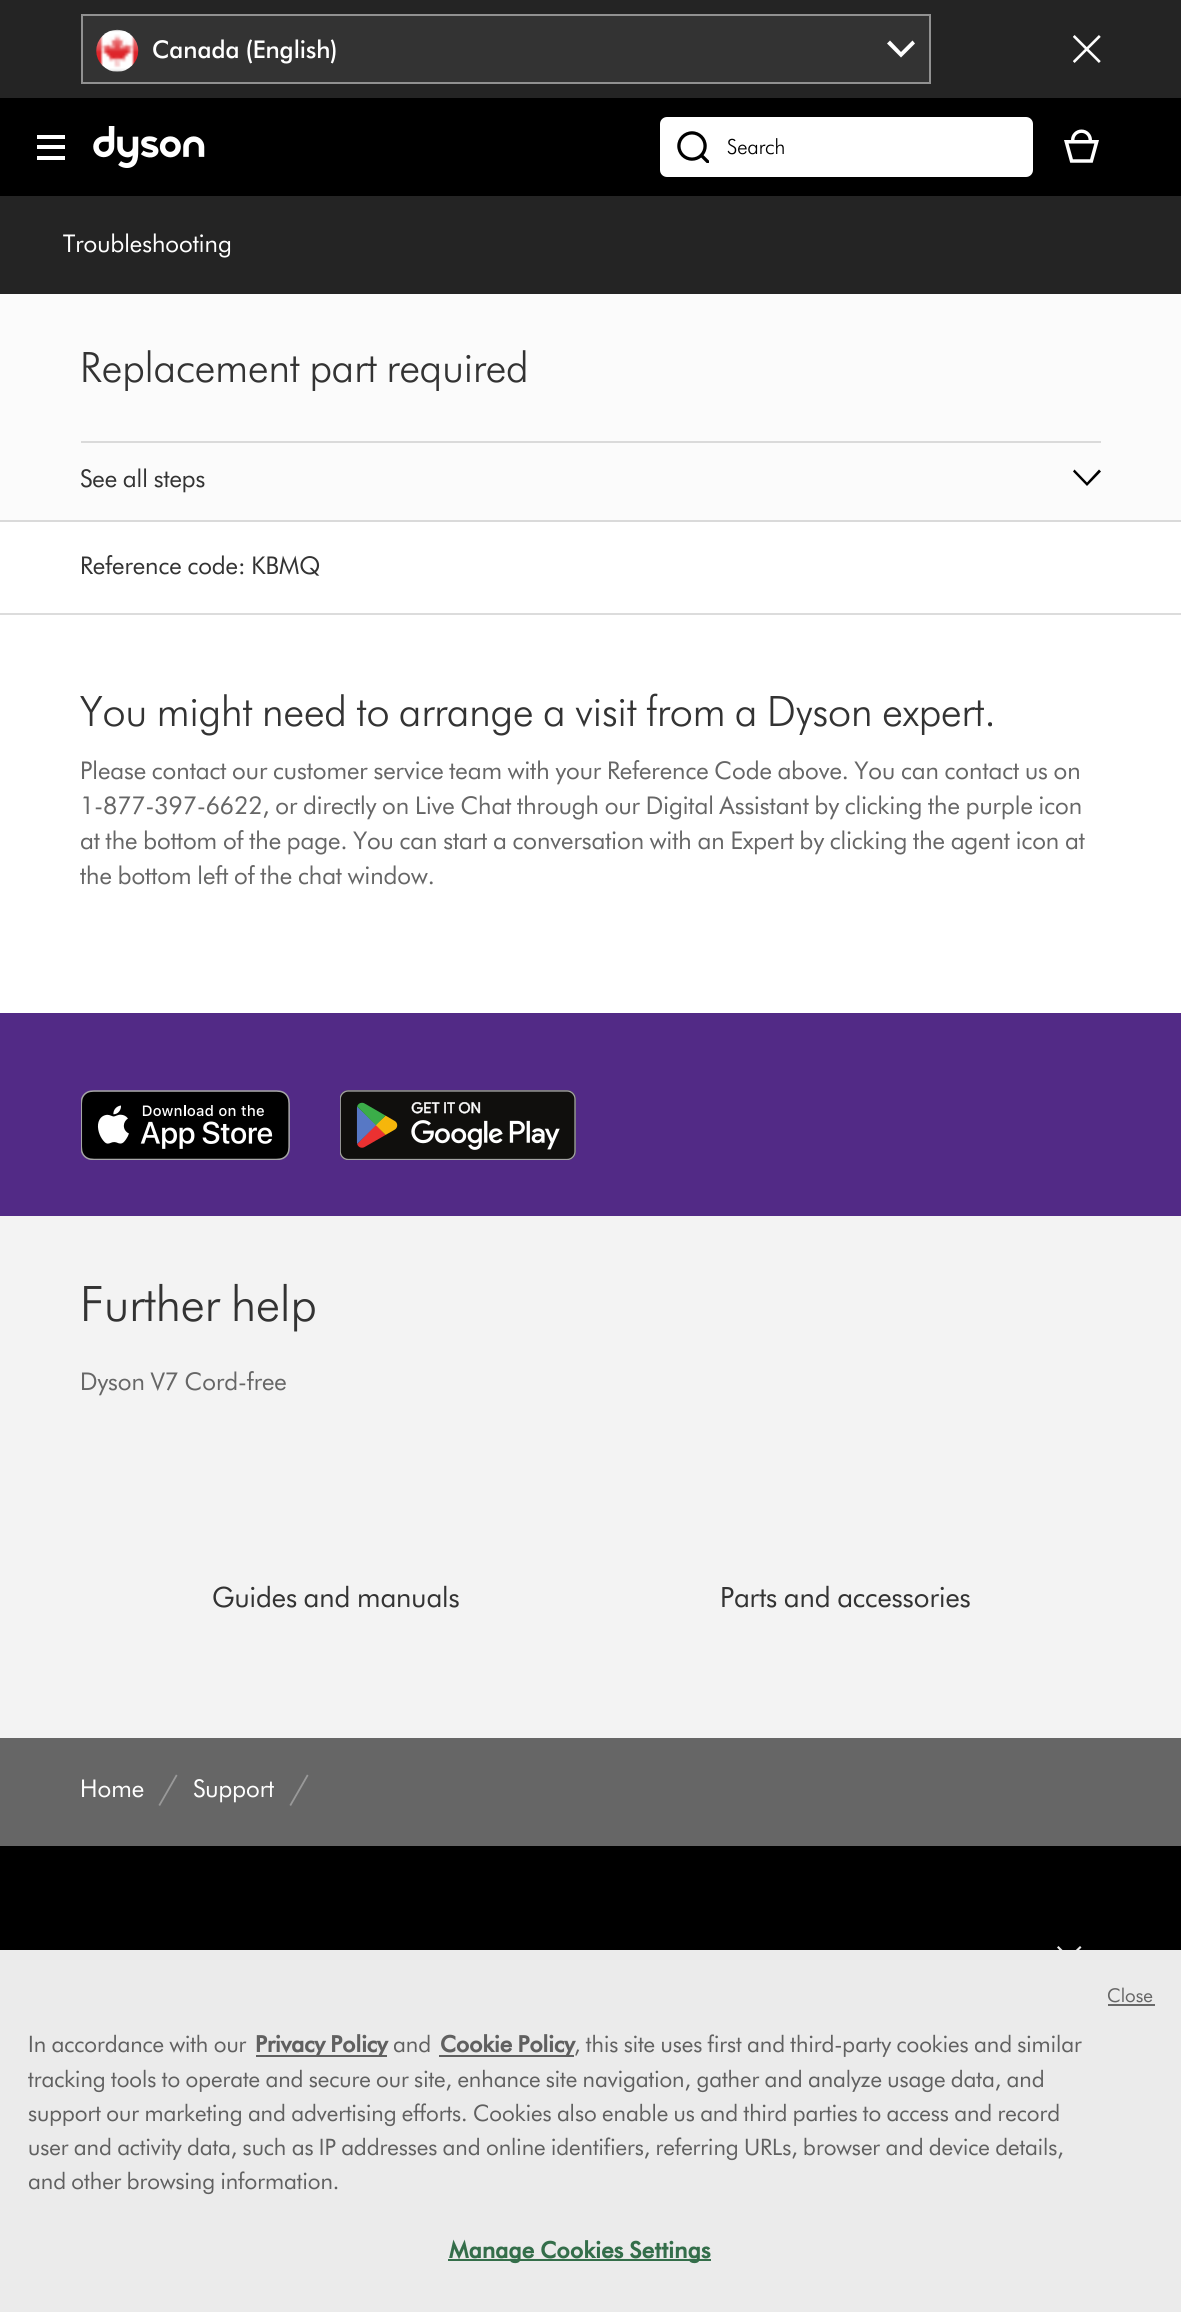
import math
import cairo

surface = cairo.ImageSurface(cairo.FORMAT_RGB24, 1181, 2312)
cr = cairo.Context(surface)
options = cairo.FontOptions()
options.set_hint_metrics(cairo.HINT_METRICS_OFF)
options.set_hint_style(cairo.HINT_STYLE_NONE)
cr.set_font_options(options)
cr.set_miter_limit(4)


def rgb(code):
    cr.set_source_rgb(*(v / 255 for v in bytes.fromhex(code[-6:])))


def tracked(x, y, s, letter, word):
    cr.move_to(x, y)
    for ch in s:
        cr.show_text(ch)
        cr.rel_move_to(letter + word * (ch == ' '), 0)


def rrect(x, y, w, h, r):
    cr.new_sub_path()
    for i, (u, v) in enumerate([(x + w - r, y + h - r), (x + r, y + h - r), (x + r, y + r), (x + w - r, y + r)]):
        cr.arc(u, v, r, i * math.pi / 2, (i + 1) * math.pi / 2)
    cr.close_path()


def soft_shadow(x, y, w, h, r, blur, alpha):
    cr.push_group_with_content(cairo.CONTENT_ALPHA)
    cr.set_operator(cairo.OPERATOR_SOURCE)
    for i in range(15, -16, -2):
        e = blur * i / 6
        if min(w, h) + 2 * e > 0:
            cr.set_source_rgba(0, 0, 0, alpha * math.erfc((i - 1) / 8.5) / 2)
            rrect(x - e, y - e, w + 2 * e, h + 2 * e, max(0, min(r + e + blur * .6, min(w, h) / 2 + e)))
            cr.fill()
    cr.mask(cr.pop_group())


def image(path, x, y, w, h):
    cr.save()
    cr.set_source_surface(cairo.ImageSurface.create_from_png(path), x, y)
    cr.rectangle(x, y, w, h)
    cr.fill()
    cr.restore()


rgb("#ffffff")
cr.paint()
rgb("#000000")
cr.rectangle(0, 98, 1181, 98)
cr.fill()
rgb("#242424")
cr.rectangle(0, 0, 1181, 98)
cr.fill()
rgb("#333333")
cr.rectangle(82, 15, 848, 68)
cr.fill_preserve()
rgb("#919191")
cr.stroke()
image("img/1.png", 96, 29, 43, 43)
rgb("#ffffff")
cr.new_path()
cr.move_to(901, 57.5)
cr.line_to(887, 43.5)
cr.line_to(890, 40.5)
cr.line_to(901, 52)
cr.line_to(912.5, 40.5)
cr.line_to(915, 43.5)
cr.close_path()
cr.fill()
image("img/2.png", 1073, 35, 28, 28)
for x, y, w, h, color in [
    (37, 145, 28, 4, "#ffffff"),
    (37, 135, 28, 4, "#ffffff"),
    (37, 156, 28, 4, "#ffffff"),
]:
    rgb(color)
    cr.rectangle(x, y, w, h)
    cr.fill()
image("img/3.png", 93, 126, 112, 42)
rrect(660, 117, 373, 60, 7)
cr.fill()
image("img/4.png", 677, 131, 32, 32)
image("img/5.png", 1064, 129, 35, 34)
for x, y, w, h, color in [
    (0, 196, 1181, 98, "#242424"),
    (0, 294, 1181, 226, "#fbfbfb"),
    (0, 520, 1181, 2, "#dadada"),
    (81, 441, 1020, 2, "#dadada"),
]:
    rgb(color)
    cr.rectangle(x, y, w, h)
    cr.fill()
rgb("#000000")
cr.new_path()
cr.move_to(1099, 469.5)
cr.line_to(1087, 482.5)
cr.line_to(1074.5, 469.5)
cr.line_to(1073, 471.5)
cr.line_to(1087, 486)
cr.line_to(1101, 471.5)
cr.close_path()
cr.fill()
rgb("#dcdcdc")
cr.rectangle(0, 613, 1181, 2)
cr.fill()
rgb("#522a86")
cr.rectangle(0, 1013, 1181, 203)
cr.fill()
image("img/6.png", 81, 1090, 209, 70)
image("img/7.png", 340, 1090, 236, 70)
rgb("#f3f3f3")
cr.rectangle(0, 1216, 1181, 522)
cr.fill()
rgb("#666666")
cr.rectangle(0, 1738, 1181, 108)
cr.fill()
rgb("#999999")
cr.set_fill_rule(cairo.FILL_RULE_EVEN_ODD)
cr.new_path()
cr.move_to(176, 1774.5)
cr.line_to(177.5, 1775.5)
cr.line_to(160, 1806)
cr.line_to(158.5, 1805)
cr.close_path()
cr.fill()
cr.new_path()
cr.move_to(307, 1774.5)
cr.line_to(308.5, 1775.5)
cr.line_to(291, 1806)
cr.line_to(289.5, 1805)
cr.close_path()
cr.fill()
rgb("#000000")
cr.rectangle(0, 1846, 1181, 104)
cr.fill()
rgb("#ffffff")
cr.set_fill_rule(cairo.FILL_RULE_WINDING)
cr.new_path()
cr.move_to(1080, 1946)
cr.line_to(1069, 1956.5)
cr.line_to(1058.5, 1946)
cr.line_to(1057, 1947.5)
cr.line_to(1069, 1960)
cr.line_to(1081.5, 1947.5)
cr.close_path()
cr.fill()
rgb("#000000")
soft_shadow(0, 1950, 1181, 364, 0, 16, 0.2)
for x, y, w, h, color in [
    (0, 1950, 1181, 362, "#ebebeb"),
    (1108, 2004, 47, 2, "#696969"),
    (256, 2055, 131, 2, "#606060"),
    (439, 2055, 135, 2, "#606060"),
    (448, 2259, 263, 2, "#346e4a"),
]:
    rgb(color)
    cr.rectangle(x, y, w, h)
    cr.fill()
cr.select_font_face("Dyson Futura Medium")
cr.set_font_size(24.5)
rgb("#ffffff")
cr.move_to(152, 58)
cr.show_text("Canada (English)")
cr.select_font_face("Dyson Futura Light")
cr.set_font_size(21)
rgb("#000000")
cr.move_to(727, 154)
cr.show_text("Search")
cr.select_font_face("Dyson Futura")
cr.set_font_size(24.5)
rgb("#ffffff")
cr.move_to(63, 252)
cr.show_text("Troubleshooting")
cr.select_font_face("Dyson Futura Light")
cr.set_font_size(42)
rgb("#333333")
cr.move_to(80, 382)
cr.show_text("Replacement part required")
cr.select_font_face("Dyson Futura")
cr.set_font_size(24.5)
cr.move_to(80, 487)
cr.show_text("See all steps")
cr.move_to(80, 574)
cr.show_text("Reference code: KBMQ")
cr.select_font_face("Dyson Futura Light")
cr.set_font_size(42)
cr.move_to(80, 726)
cr.show_text("You might need to arrange a visit from a Dyson expert.")
cr.select_font_face("Dyson Futura")
cr.set_font_size(24.5)
rgb("#666666")
for x, y, s in [
    (80, 779, "Please contact our customer service team with your Reference Code above. You can contact us on"),
    (80, 814, "1-877-397-6622, or directly on Live Chat through our Digital Assistant by clicking the purple icon"),
    (80, 849, "at the bottom of the page. You can start a conversation with an Expert by clicking the agent icon at"),
    (80, 884, "the bottom left of the chat window."),
]:
    cr.move_to(x, y)
    cr.show_text(s)
cr.select_font_face("Dyson Futura Light")
cr.set_font_size(49)
rgb("#333333")
cr.move_to(80, 1321)
cr.show_text("Further help")
cr.select_font_face("Dyson Futura")
cr.set_font_size(24.5)
rgb("#666666")
cr.move_to(80, 1390)
cr.show_text("Dyson V7 Cord-free")
cr.set_font_size(28)
rgb("#333333")
cr.move_to(212, 1607)
cr.show_text("Guides and manuals")
cr.move_to(720, 1607)
cr.show_text("Parts and accessories")
cr.set_font_size(24.5)
rgb("#ffffff")
cr.move_to(80, 1797)
cr.show_text("Home")
cr.move_to(193, 1797)
cr.show_text("Support")
cr.set_font_size(19)
rgb("#666666")
cr.move_to(1107, 2002)
cr.show_text("Close")
cr.set_font_size(22.75)
rgb("#606060")
cr.move_to(28, 2052)
cr.show_text("In accordance with our")
cr.select_font_face("Dyson Futura", cairo.FONT_SLANT_NORMAL, cairo.FONT_WEIGHT_BOLD)
cr.move_to(255, 2052)
cr.show_text("Privacy Policy")
cr.select_font_face("Dyson Futura")
cr.move_to(393, 2052)
cr.show_text("and")
cr.select_font_face("Dyson Futura", cairo.FONT_SLANT_NORMAL, cairo.FONT_WEIGHT_BOLD)
cr.move_to(440, 2052)
cr.show_text("Cookie Policy")
cr.select_font_face("Dyson Futura")
for x, y, s in [
    (574, 2052, ", this site uses first and third-party cookies and similar"),
    (28, 2087, "tracking tools to operate and secure our site, enhance site navigation, gather and analyze usage data, and"),
    (28, 2121, "support our marketing and advertising efforts. Cookies also enable us and third parties to access and record"),
    (28, 2155, "user and activity data, such as IP addresses and online identifiers, referring URLs, browser and device details,"),
    (28, 2189, "and other browsing information."),
]:
    cr.move_to(x, y)
    cr.show_text(s)
cr.select_font_face("Dyson Futura", cairo.FONT_SLANT_NORMAL, cairo.FONT_WEIGHT_BOLD)
rgb("#346e4a")
tracked(449, 2258, "Manage Cookies Settings", 0.25, 0)
surface.write_to_png("page.png")
